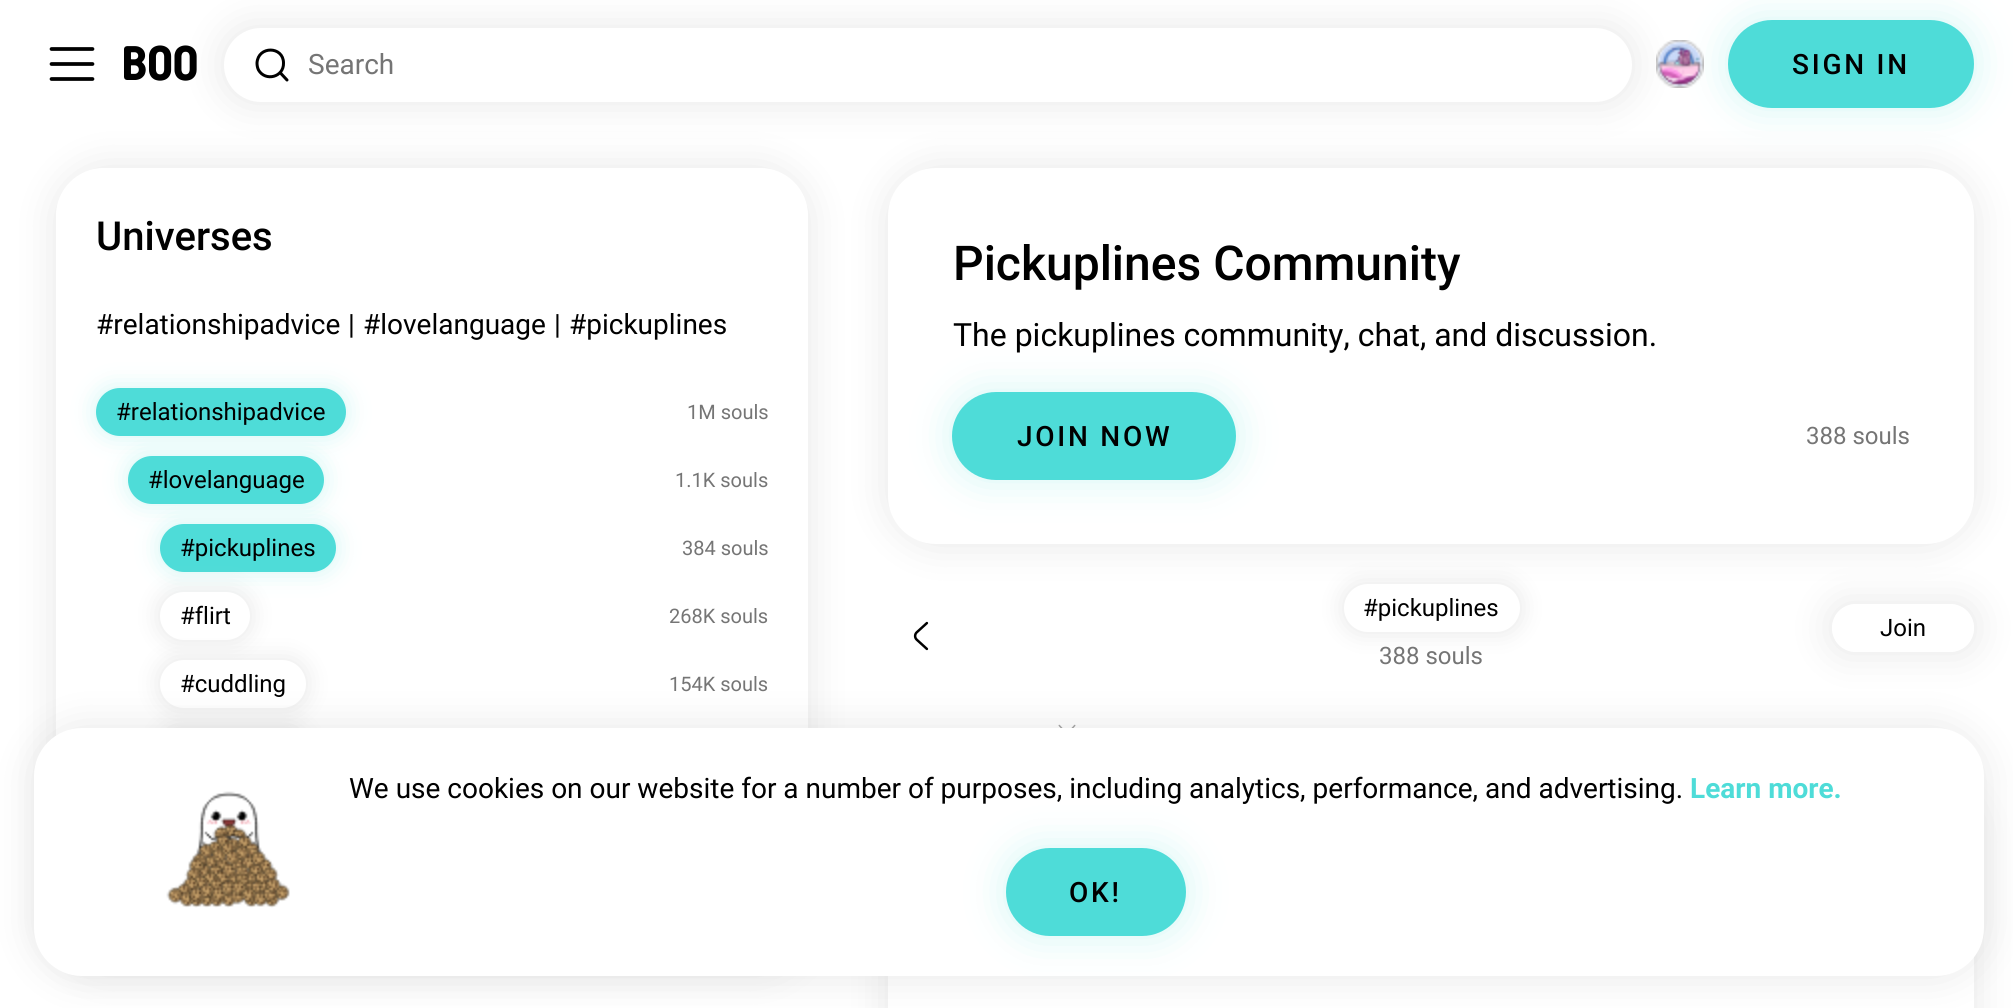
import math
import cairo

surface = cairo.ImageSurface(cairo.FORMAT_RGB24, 2013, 1008)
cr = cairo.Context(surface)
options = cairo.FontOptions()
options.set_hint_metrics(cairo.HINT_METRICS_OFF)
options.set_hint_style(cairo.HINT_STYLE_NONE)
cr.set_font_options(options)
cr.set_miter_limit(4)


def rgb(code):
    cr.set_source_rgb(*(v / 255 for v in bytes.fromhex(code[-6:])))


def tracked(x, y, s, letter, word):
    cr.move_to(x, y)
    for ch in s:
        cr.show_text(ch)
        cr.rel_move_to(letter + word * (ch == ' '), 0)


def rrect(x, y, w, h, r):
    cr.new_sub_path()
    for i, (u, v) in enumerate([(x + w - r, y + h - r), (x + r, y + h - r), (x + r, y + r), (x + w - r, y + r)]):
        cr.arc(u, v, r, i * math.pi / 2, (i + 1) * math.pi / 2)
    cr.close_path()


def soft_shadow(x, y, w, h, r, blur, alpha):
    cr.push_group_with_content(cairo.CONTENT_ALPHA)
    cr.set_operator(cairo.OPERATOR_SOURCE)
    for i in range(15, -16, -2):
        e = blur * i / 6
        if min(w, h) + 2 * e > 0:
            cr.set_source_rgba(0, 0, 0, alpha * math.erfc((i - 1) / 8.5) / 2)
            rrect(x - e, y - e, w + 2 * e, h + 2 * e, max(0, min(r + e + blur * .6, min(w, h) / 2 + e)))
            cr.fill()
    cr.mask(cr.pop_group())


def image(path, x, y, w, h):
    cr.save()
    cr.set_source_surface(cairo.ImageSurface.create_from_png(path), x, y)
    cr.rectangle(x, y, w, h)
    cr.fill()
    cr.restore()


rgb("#ffffff")
cr.paint()
cr.new_path()
cr.move_to(51.5, 49)
cr.line_to(92.5, 49)
cr.move_to(51.5, 64)
cr.line_to(92.5, 64)
cr.move_to(51.5, 79)
cr.line_to(92.5, 79)
rgb("#000000")
cr.set_line_width(3.7)
cr.set_line_cap(cairo.LINE_CAP_ROUND)
cr.stroke()
rgb("#9e9e9e")
soft_shadow(224, 28, 1408, 74, 37, 20, 0.25)
rgb("#ffffff")
rrect(224, 28, 1408, 74, 37)
cr.fill()
cr.new_path()
cr.move_to(287, 80)
cr.line_to(280, 72.5)
cr.move_to(283.5, 63)
cr.curve_to(284, 77, 265.5, 82, 258.5, 70)
cr.curve_to(257.5, 68, 257, 65.5, 257, 63)
cr.curve_to(258, 45.5, 283.5, 46, 283.5, 63)
cr.close_path()
rgb("#000000")
cr.set_line_width(3)
cr.set_line_join(cairo.LINE_JOIN_ROUND)
cr.stroke()
rgb("#9e9e9e")
soft_shadow(888, 168, 1086, 376, 48, 20, 0.25)
rgb("#ffffff")
rrect(888, 168, 1086, 376, 48)
cr.fill()
rgb("#4edcd8")
soft_shadow(1728, 20, 246, 88, 44, 20, 0.25)
image("img/1.png", 1656, 40, 48, 48)
rgb("#4edcd8")
rrect(1728, 20, 246, 88, 44)
cr.fill()
cr.save()
cr.set_fill_rule(cairo.FILL_RULE_EVEN_ODD)
cr.new_path()
cr.move_to(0, 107)
cr.line_to(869, 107)
cr.line_to(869, 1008)
cr.line_to(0, 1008)
cr.close_path()
cr.move_to(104, 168)
cr.line_to(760, 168)
cr.curve_to(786.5, 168, 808, 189.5, 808, 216)
cr.line_to(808, 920)
cr.curve_to(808, 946.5, 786.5, 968, 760, 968)
cr.line_to(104, 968)
cr.curve_to(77.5, 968, 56, 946.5, 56, 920)
cr.line_to(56, 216)
cr.curve_to(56, 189.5, 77.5, 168, 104, 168)
cr.close_path()
cr.clip()
rgb("#9e9e9e")
soft_shadow(56, 168, 752, 800, 48, 20, 0.25)
cr.restore()
rgb("#4edcd8")
soft_shadow(96, 388, 250, 48, 24, 12, 0.25)
rgb("#4edcd8")
rrect(96, 388, 250, 48, 24)
cr.fill()
rgb("#4edcd8")
soft_shadow(128, 456, 196, 48, 24, 12, 0.25)
rgb("#4edcd8")
rrect(128, 456, 196, 48, 24)
cr.fill()
rgb("#4edcd8")
soft_shadow(160, 524, 176, 48, 24, 12, 0.25)
rgb("#4edcd8")
rrect(160, 524, 176, 48, 24)
cr.fill()
rgb("#9e9e9e")
soft_shadow(160, 592, 90, 48, 24, 12, 0.25)
rgb("#ffffff")
rrect(160, 592, 90, 48, 24)
cr.fill()
rgb("#9e9e9e")
soft_shadow(160, 660, 146, 48, 24, 12, 0.25)
rgb("#ffffff")
rrect(160, 660, 146, 48, 24)
cr.fill()
rgb("#9e9e9e")
soft_shadow(160, 728, 146, 48, 24, 12, 0.25)
rgb("#4edcd8")
soft_shadow(952, 392, 284, 88, 44, 20, 0.25)
rgb("#4edcd8")
rrect(952, 392, 284, 88, 44)
cr.fill()
image("img/2.png", 913, 621, 16, 30)
rgb("#9e9e9e")
soft_shadow(1344, 584, 176, 48, 24, 12, 0.25)
rgb("#ffffff")
rrect(1344, 584, 176, 48, 24)
cr.fill()
cr.save()
cr.set_fill_rule(cairo.FILL_RULE_EVEN_ODD)
cr.new_path()
cr.move_to(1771, 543)
cr.line_to(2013, 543)
cr.line_to(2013, 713)
cr.line_to(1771, 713)
cr.close_path()
cr.move_to(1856, 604)
cr.line_to(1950, 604)
cr.curve_to(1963.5, 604, 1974, 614.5, 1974, 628)
cr.curve_to(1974, 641.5, 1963.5, 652, 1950, 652)
cr.line_to(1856, 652)
cr.curve_to(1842.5, 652, 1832, 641.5, 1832, 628)
cr.curve_to(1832, 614.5, 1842.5, 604, 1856, 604)
cr.close_path()
cr.clip()
rgb("#9e9e9e")
soft_shadow(1832, 604, 142, 48, 24, 20, 0.25)
cr.restore()
rgb("#9e9e9e")
soft_shadow(888, 784, 1086, 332, 48, 20, 0.25)
rgb("#ffffff")
cr.rectangle(888, 957, 1086, 51)
cr.fill()
image("img/3.png", 1058, 724, 18, 4)
rgb("#9e9e9e")
soft_shadow(34, 728, 1950, 248, 48, 20, 0.25)
rgb("#ffffff")
rrect(34, 728, 1950, 248, 48)
cr.fill()
image("img/4.png", 166, 791, 124, 117)
rgb("#4edcd8")
soft_shadow(1006, 848, 180, 88, 44, 20, 0.25)
rgb("#4edcd8")
rrect(1006, 848, 180, 88, 44)
cr.fill()
cr.select_font_face("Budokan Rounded", cairo.FONT_SLANT_NORMAL, cairo.FONT_WEIGHT_BOLD)
cr.set_font_size(48)
rgb("#000000")
cr.move_to(124, 80)
cr.show_text("Boo")
cr.select_font_face("Roboto")
cr.set_font_size(28)
rgb("#757575")
cr.move_to(308, 74)
cr.show_text("Search")
cr.select_font_face("Roboto Medium")
rgb("#000000")
tracked(1792, 74, "SIGN IN", 2.75, 0)
cr.set_font_size(40)
cr.move_to(96, 250)
cr.show_text("Universes")
cr.select_font_face("Roboto")
cr.set_font_size(28)
for x, y, s in [
    (96, 334, "#relationshipadvice"),
    (348, 334, "|"),
    (363, 334, "#lovelanguage"),
    (554, 334, "|"),
    (569, 334, "#pickuplines"),
]:
    cr.move_to(x, y)
    cr.show_text(s)
cr.set_font_size(24)
cr.move_to(116, 420)
cr.show_text("#relationshipadvice")
cr.set_font_size(20)
rgb("#757575")
cr.move_to(687, 419)
cr.show_text("1M souls")
cr.set_font_size(24)
rgb("#000000")
cr.move_to(148, 488)
cr.show_text("#lovelanguage")
cr.set_font_size(20)
rgb("#757575")
cr.move_to(675, 487)
cr.show_text("1.1K souls")
cr.set_font_size(24)
rgb("#000000")
cr.move_to(180, 556)
cr.show_text("#pickuplines")
cr.set_font_size(20)
rgb("#757575")
cr.move_to(682, 555)
cr.show_text("384 souls")
cr.set_font_size(24)
rgb("#000000")
cr.move_to(180, 624)
cr.show_text("#flirt")
cr.set_font_size(20)
rgb("#757575")
cr.move_to(669, 623)
cr.show_text("268K souls")
cr.set_font_size(24)
rgb("#000000")
cr.move_to(180, 692)
cr.show_text("#cuddling")
cr.set_font_size(20)
rgb("#757575")
cr.move_to(669, 691)
cr.show_text("154K souls")
cr.select_font_face("Roboto Medium")
cr.set_font_size(48)
rgb("#000000")
cr.move_to(953, 280)
cr.show_text("Pickuplines Community")
cr.select_font_face("Roboto")
cr.set_font_size(32)
cr.move_to(953, 346)
cr.show_text("The pickuplines community, chat, and discussion.")
cr.select_font_face("Roboto Medium")
cr.set_font_size(28)
tracked(1017, 446, "JOIN NOW", 2.75, 0)
cr.select_font_face("Roboto")
cr.set_font_size(24)
rgb("#757575")
cr.move_to(1806, 444)
cr.show_text("388 souls")
rgb("#000000")
cr.move_to(1363, 616)
cr.show_text("#pickuplines")
rgb("#757575")
cr.move_to(1379, 664)
cr.show_text("388 souls")
rgb("#000000")
cr.move_to(1880, 636)
cr.show_text("Join")
cr.set_font_size(28)
cr.move_to(349, 798)
cr.show_text("We use cookies on our website for a number of purposes, including analytics, performance, and advertising.")
cr.select_font_face("Roboto", cairo.FONT_SLANT_NORMAL, cairo.FONT_WEIGHT_BOLD)
rgb("#4edcd8")
cr.move_to(1690, 798)
cr.show_text("Learn more.")
cr.select_font_face("Roboto Medium")
rgb("#000000")
tracked(1069, 902, "OK!", 2.75, 0)
surface.write_to_png("page.png")
